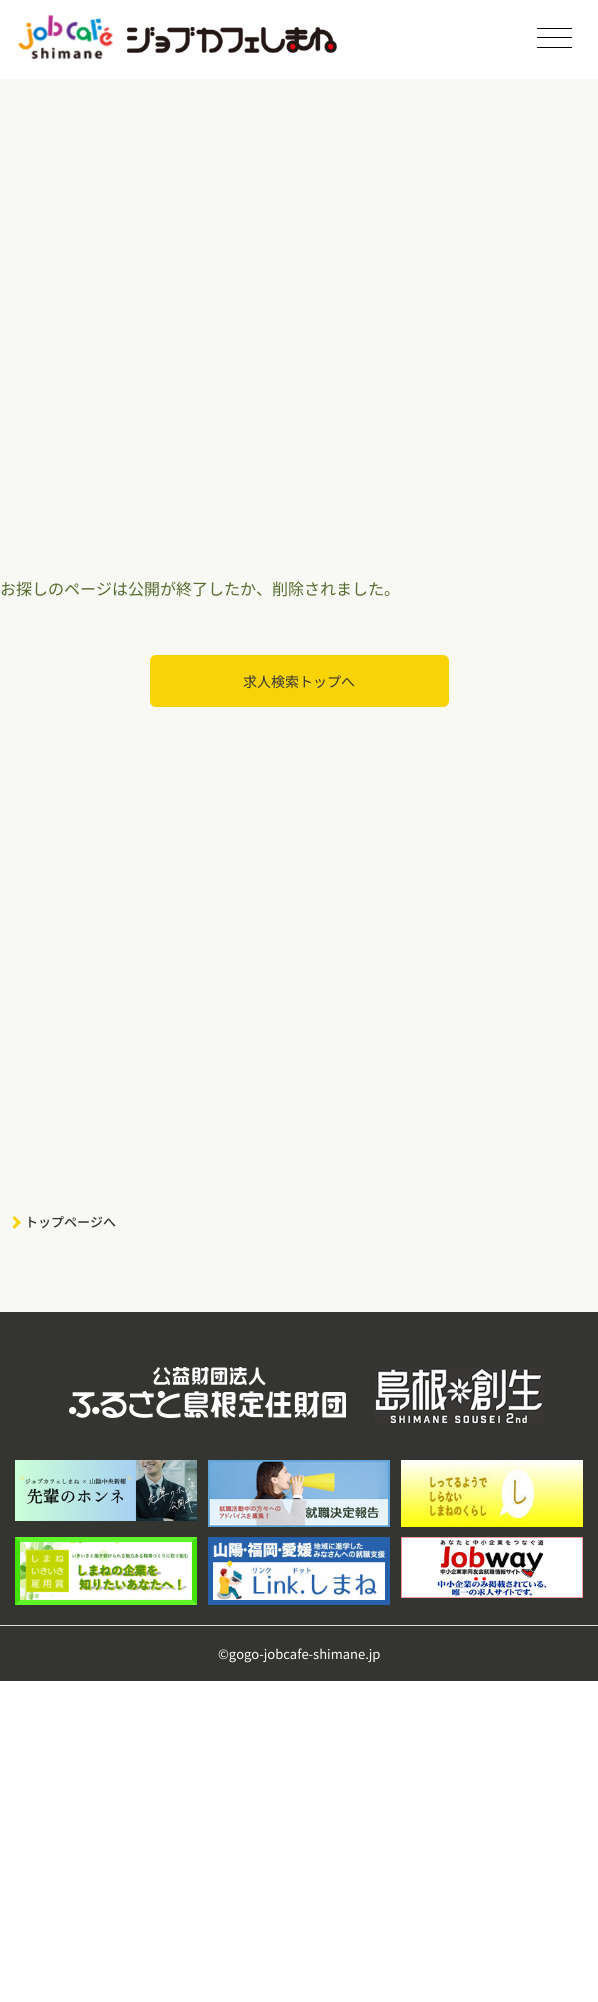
import math
import cairo

surface = cairo.ImageSurface(cairo.FORMAT_RGB24, 598, 2002)
cr = cairo.Context(surface)
options = cairo.FontOptions()
options.set_hint_metrics(cairo.HINT_METRICS_OFF)
options.set_hint_style(cairo.HINT_STYLE_NONE)
cr.set_font_options(options)
cr.set_miter_limit(4)


def rgb(code):
    cr.set_source_rgb(*(v / 255 for v in bytes.fromhex(code[-6:])))


def rrect(x, y, w, h, r):
    cr.new_sub_path()
    for i, (u, v) in enumerate([(x + w - r, y + h - r), (x + r, y + h - r), (x + r, y + r), (x + w - r, y + r)]):
        cr.arc(u, v, r, i * math.pi / 2, (i + 1) * math.pi / 2)
    cr.close_path()


def image(path, x, y, w, h):
    cr.save()
    cr.set_source_surface(cairo.ImageSurface.create_from_png(path), x, y)
    cr.rectangle(x, y, w, h)
    cr.fill()
    cr.restore()


rgb("#ffffff")
cr.paint()
image("img/1.png", 18, 15, 95, 44)
image("img/2.png", 127, 27, 210, 26)
for x, y, w, h, color in [
    (537, 47, 35, 1, "#000000"),
    (537, 28, 35, 1, "#000000"),
    (537, 37, 35, 1, "#000000"),
    (0, 79, 598, 1233, "#f8f8f4"),
]:
    rgb(color)
    cr.rectangle(x, y, w, h)
    cr.fill()
rgb("#f8d305")
rrect(150, 655, 299, 52, 6)
cr.fill()
cr.new_path()
cr.move_to(14.5, 1216)
cr.line_to(21, 1222.5)
cr.line_to(18.5, 1224.5)
cr.line_to(12.5, 1218)
cr.close_path()
cr.fill()
cr.new_path()
cr.move_to(18.5, 1220.5)
cr.line_to(21, 1222.5)
cr.line_to(14.5, 1229)
cr.line_to(12.5, 1226.5)
cr.close_path()
cr.fill()
rgb("#343431")
cr.rectangle(0, 1312, 598, 369)
cr.fill()
rgb("#dbdbd2")
cr.rectangle(0, 1625, 598, 1)
cr.fill()
image("img/3.png", 69, 1367, 277, 51)
image("img/4.png", 375, 1367, 169, 58)
image("img/5.png", 15, 1460, 182, 61)
image("img/6.png", 208, 1460, 182, 67)
image("img/7.png", 401, 1460, 182, 67)
image("img/8.png", 15, 1537, 182, 68)
image("img/9.png", 208, 1537, 182, 68)
image("img/10.png", 401, 1537, 182, 61)
cr.select_font_face("Noto Sans JP")
cr.set_font_size(16)
rgb("#556b2f")
cr.move_to(0, 595)
cr.show_text("お探しのページは公開が終了したか、削除されました。")
cr.set_font_size(14)
rgb("#333333")
cr.move_to(243, 687)
cr.show_text("求人検索トップへ")
cr.select_font_face("Noto Sans JP Medium")
cr.set_font_size(13)
cr.move_to(25, 1227)
cr.show_text("トップページへ")
cr.select_font_face("Noto Sans JP")
rgb("#ffffff")
cr.move_to(218, 1659)
cr.show_text("©gogo-jobcafe-shimane.jp")
surface.write_to_png("page.png")
